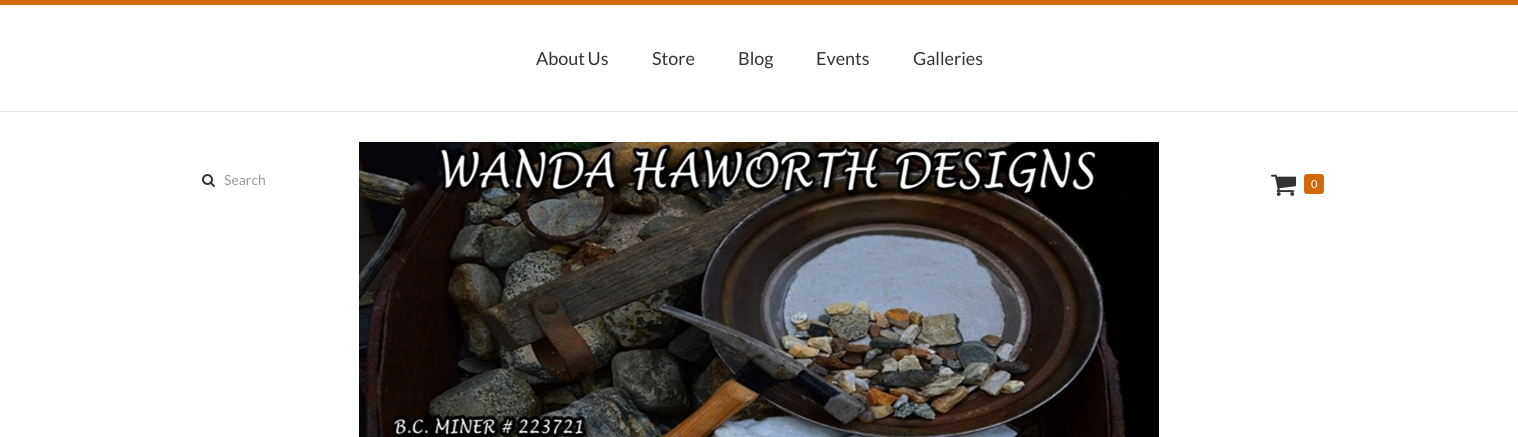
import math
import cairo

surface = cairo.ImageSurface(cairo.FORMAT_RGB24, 1518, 437)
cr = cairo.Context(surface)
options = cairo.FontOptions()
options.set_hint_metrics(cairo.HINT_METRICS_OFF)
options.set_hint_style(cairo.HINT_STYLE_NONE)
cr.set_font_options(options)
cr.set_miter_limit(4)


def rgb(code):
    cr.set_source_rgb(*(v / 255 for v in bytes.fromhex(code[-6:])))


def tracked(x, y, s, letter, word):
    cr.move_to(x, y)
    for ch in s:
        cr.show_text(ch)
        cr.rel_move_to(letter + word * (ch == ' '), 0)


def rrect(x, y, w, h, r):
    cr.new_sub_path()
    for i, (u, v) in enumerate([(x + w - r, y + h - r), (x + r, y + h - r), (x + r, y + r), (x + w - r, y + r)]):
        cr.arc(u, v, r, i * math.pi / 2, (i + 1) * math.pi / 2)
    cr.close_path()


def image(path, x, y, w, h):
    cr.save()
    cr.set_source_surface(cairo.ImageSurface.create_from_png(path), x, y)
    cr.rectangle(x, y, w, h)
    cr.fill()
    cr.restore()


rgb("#ffffff")
cr.paint()
rgb("#d36a09")
cr.rectangle(0, 0, 1518, 5)
cr.fill()
rgb("#e5e5e5")
cr.rectangle(0, 111, 1518, 1)
cr.fill()
image("img/1.png", 202, 174, 13, 13)
image("img/2.png", 359, 142, 800, 295)
image("img/3.png", 1271, 174, 26, 22)
rgb("#d36a09")
rrect(1304, 174, 20, 20, 3)
cr.fill()
cr.select_font_face("Lato")
cr.set_font_size(18)
rgb("#333333")
tracked(536, 65, "About Us", 0, -1)
for x, y, s in [
    (652, 65, "Store"),
    (738, 65, "Blog"),
    (816, 65, "Events"),
    (913, 65, "Galleries"),
]:
    cr.move_to(x, y)
    cr.show_text(s)
cr.set_font_size(14)
rgb("#999999")
cr.move_to(224, 185)
cr.show_text("Search")
cr.set_font_size(11)
rgb("#ffffff")
cr.move_to(1311, 188)
cr.show_text("0")
surface.write_to_png("page.png")
